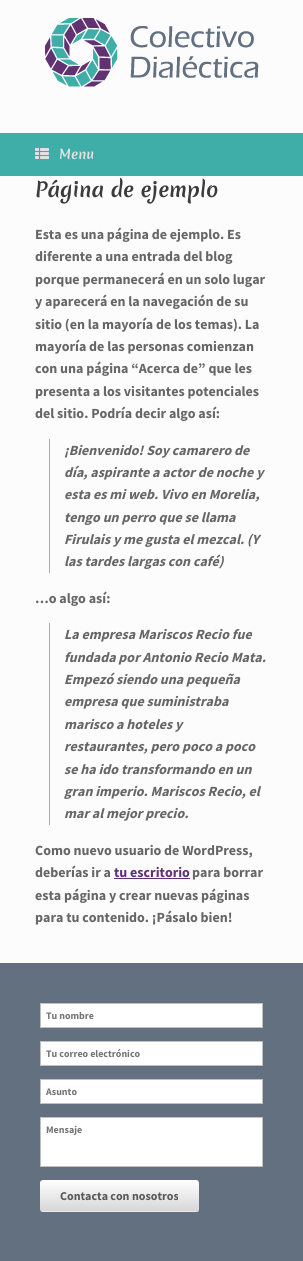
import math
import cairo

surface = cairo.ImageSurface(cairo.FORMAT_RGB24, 303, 1261)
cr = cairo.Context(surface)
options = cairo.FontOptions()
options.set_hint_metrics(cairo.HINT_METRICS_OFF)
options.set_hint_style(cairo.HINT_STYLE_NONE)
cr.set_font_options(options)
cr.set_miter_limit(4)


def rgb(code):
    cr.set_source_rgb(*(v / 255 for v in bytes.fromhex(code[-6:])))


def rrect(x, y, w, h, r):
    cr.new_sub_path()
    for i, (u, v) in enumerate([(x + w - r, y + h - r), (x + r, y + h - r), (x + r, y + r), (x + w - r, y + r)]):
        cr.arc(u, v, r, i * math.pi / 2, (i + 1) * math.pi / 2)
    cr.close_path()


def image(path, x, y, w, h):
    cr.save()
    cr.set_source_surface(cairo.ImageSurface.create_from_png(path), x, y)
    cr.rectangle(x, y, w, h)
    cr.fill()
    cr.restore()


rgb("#637080")
cr.paint()
rgb("#fcfcfc")
cr.rectangle(0, 0, 303, 133)
cr.fill()
image("img/1.png", 45, 18, 214, 69)
rgb("#3faea8")
cr.rectangle(0, 133, 303, 43)
cr.fill()
image("img/2.png", 35, 148, 14, 11)
for x, y, w, h, color in [
    (0, 176, 303, 787, "#fcfcfc"),
    (49, 439, 1, 134, "#aaaaaa"),
    (49, 623, 1, 202, "#aaaaaa"),
    (114, 878, 76, 1, "#613272"),
]:
    rgb(color)
    cr.rectangle(x, y, w, h)
    cr.fill()
rgb("#ffffff")
cr.rectangle(40.5, 1003.5, 222, 24)
cr.fill_preserve()
rgb("#c0c0c0")
cr.set_line_width(1)
cr.stroke()
rgb("#ffffff")
cr.rectangle(40.5, 1041.5, 222, 24)
cr.fill_preserve()
rgb("#c0c0c0")
cr.stroke()
rgb("#ffffff")
cr.rectangle(40.5, 1079.5, 222, 24)
cr.fill_preserve()
rgb("#c0c0c0")
cr.stroke()
rgb("#ffffff")
cr.rectangle(40.5, 1117.5, 222, 49)
cr.fill_preserve()
rgb("#c0c0c0")
cr.stroke()
gradient = cairo.LinearGradient(40, 1212, 40, 1180)
gradient.add_color_stop_rgba(0, 0.835, 0.835, 0.835, 1)
gradient.add_color_stop_rgba(1, 1, 1, 1, 1)
cr.set_source(gradient)
rrect(40, 1180, 159, 32, 3)
cr.fill()
cr.set_source_rgba(1, 1, 1, 0.5)
cr.new_path()
cr.move_to(40, 1208)
cr.curve_to(40, 1210, 41, 1212, 43, 1212)
cr.line_to(197, 1212)
cr.curve_to(199, 1212, 199, 1210, 199, 1208)
cr.curve_to(199, 1210, 198, 1211, 196, 1211)
cr.line_to(43, 1211)
cr.curve_to(41, 1211, 40, 1210, 40, 1208)
cr.close_path()
cr.fill()
cr.select_font_face("Merienda", cairo.FONT_SLANT_NORMAL, cairo.FONT_WEIGHT_BOLD)
cr.set_font_size(13)
rgb("#e2e2e2")
cr.move_to(59, 159)
cr.show_text("Menu")
cr.set_font_size(20)
rgb("#3b3b3b")
cr.move_to(35, 197)
cr.show_text("Página de ejemplo")
cr.select_font_face("Source Sans Pro", cairo.FONT_SLANT_NORMAL, cairo.FONT_WEIGHT_BOLD)
cr.set_font_size(14)
rgb("#666666")
for x, y, s in [
    (35, 239, "Esta es una página de ejemplo. Es"),
    (35, 261, "diferente a una entrada del blog"),
    (35, 284, "porque permanecerá en un solo lugar"),
    (35, 306, "y aparecerá en la navegación de su"),
    (35, 329, "sitio (en la mayoría de los temas). La"),
    (35, 351, "mayoría de las personas comienzan"),
    (35, 373, "con una página “Acerca de” que les"),
    (35, 396, "presenta a los visitantes potenciales"),
    (35, 418, "del sitio. Podría decir algo así:"),
]:
    cr.move_to(x, y)
    cr.show_text(s)
cr.select_font_face("Source Sans Pro", cairo.FONT_SLANT_ITALIC, cairo.FONT_WEIGHT_BOLD)
for x, y, s in [
    (64, 455, "¡Bienvenido! Soy camarero de"),
    (64, 477, "día, aspirante a actor de noche y"),
    (64, 499, "esta es mi web. Vivo en Morelia,"),
    (64, 522, "tengo un perro que se llama"),
    (64, 544, "Firulais y me gusta el mezcal. (Y"),
    (64, 566, "las tardes largas con café)"),
]:
    cr.move_to(x, y)
    cr.show_text(s)
cr.select_font_face("Source Sans Pro", cairo.FONT_SLANT_NORMAL, cairo.FONT_WEIGHT_BOLD)
cr.move_to(35, 603)
cr.show_text("…o algo así:")
cr.select_font_face("Source Sans Pro", cairo.FONT_SLANT_ITALIC, cairo.FONT_WEIGHT_BOLD)
for x, y, s in [
    (64, 639, "La empresa Mariscos Recio fue"),
    (64, 662, "fundada por Antonio Recio Mata."),
    (64, 684, "Empezó siendo una pequeña"),
    (64, 706, "empresa que suministraba"),
    (64, 729, "marisco a hoteles y"),
    (64, 751, "restaurantes, pero poco a poco"),
    (64, 774, "se ha ido transformando en un"),
    (64, 796, "gran imperio. Mariscos Recio, el"),
    (64, 818, "mar al mejor precio."),
]:
    cr.move_to(x, y)
    cr.show_text(s)
cr.select_font_face("Source Sans Pro", cairo.FONT_SLANT_NORMAL, cairo.FONT_WEIGHT_BOLD)
cr.move_to(35, 855)
cr.show_text("Como nuevo usuario de WordPress,")
cr.move_to(35, 877)
cr.show_text("deberías ir a")
rgb("#613272")
cr.move_to(114, 877)
cr.show_text("tu escritorio")
rgb("#666666")
for x, y, s in [
    (192, 877, "para borrar"),
    (35, 900, "esta página y crear nuevas páginas"),
    (35, 922, "para tu contenido. ¡Pásalo bien!"),
]:
    cr.move_to(x, y)
    cr.show_text(s)
cr.set_font_size(10)
rgb("#757575")
for x, y, s in [
    (46, 1019, "Tu nombre"),
    (46, 1057, "Tu correo electrónico"),
    (46, 1095, "Asunto"),
    (46, 1133, "Mensaje"),
]:
    cr.move_to(x, y)
    cr.show_text(s)
cr.set_font_size(12)
rgb("#5a5a5a")
cr.move_to(60, 1200)
cr.show_text("Contacta con nosotros")
surface.write_to_png("page.png")
